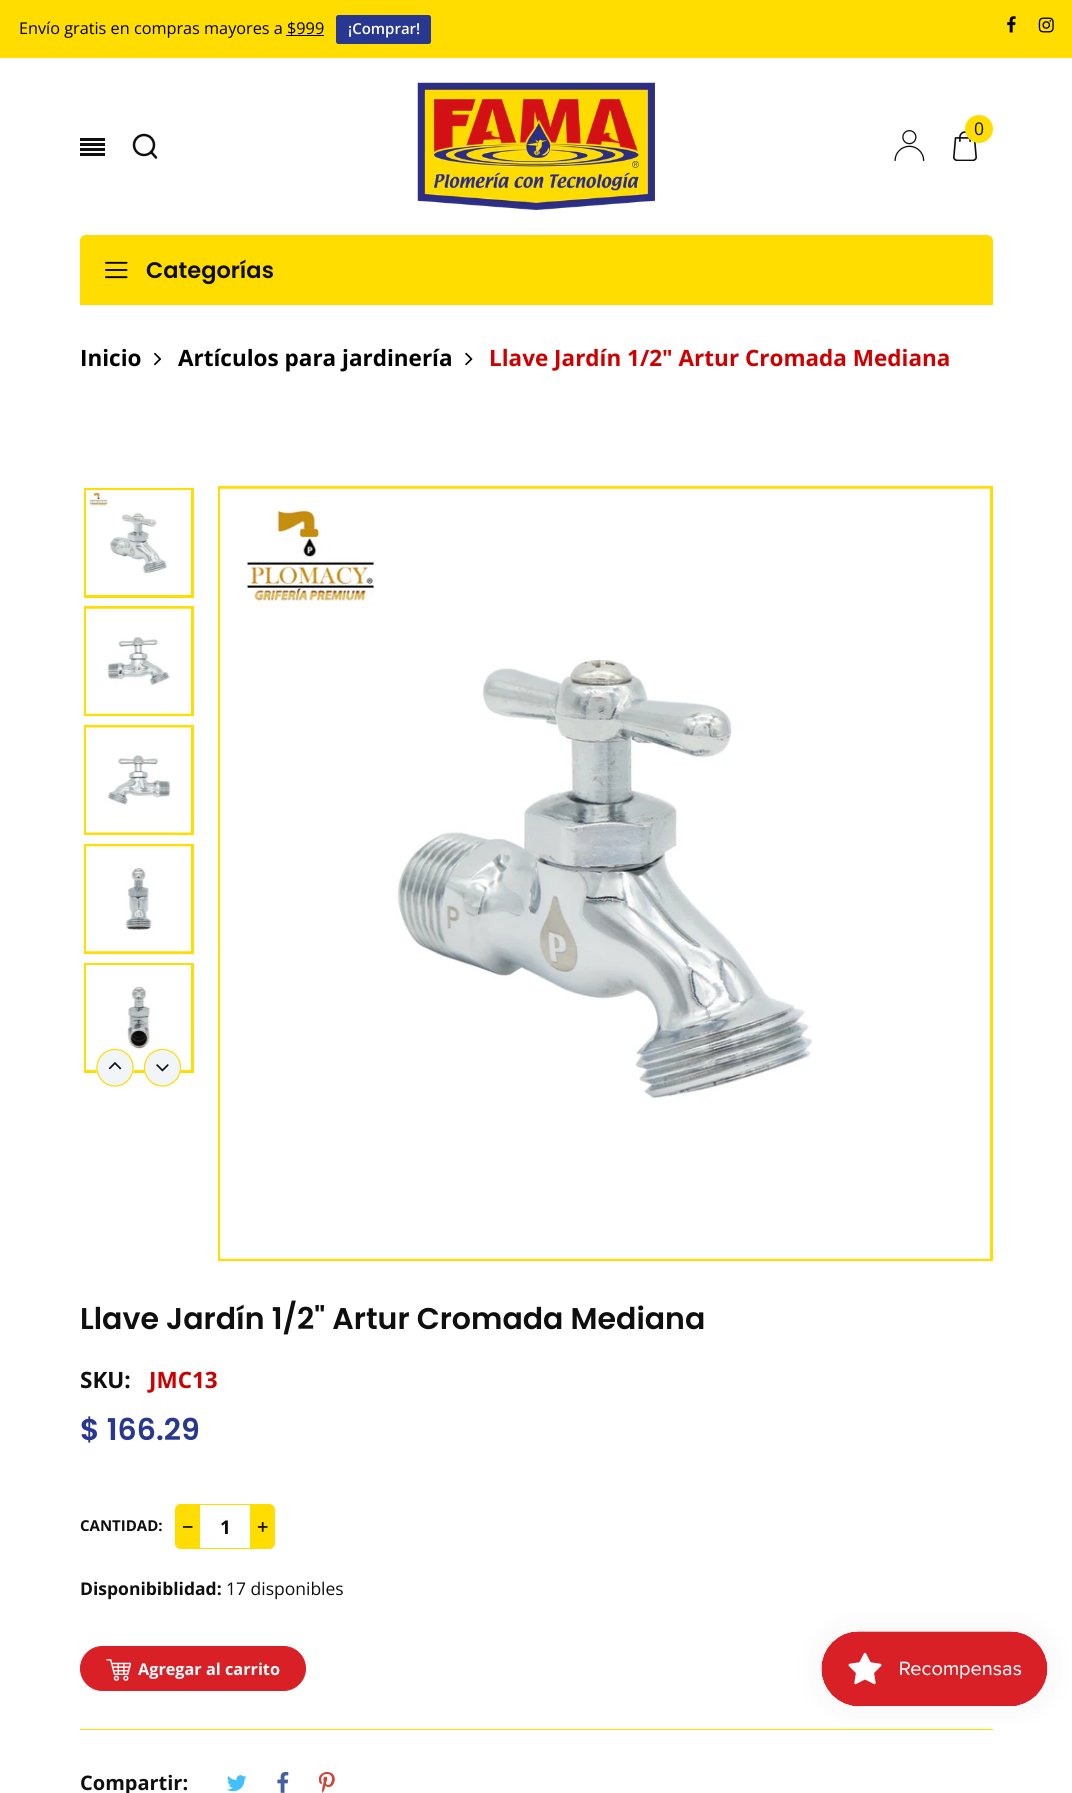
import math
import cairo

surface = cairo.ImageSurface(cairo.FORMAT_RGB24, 1072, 1793)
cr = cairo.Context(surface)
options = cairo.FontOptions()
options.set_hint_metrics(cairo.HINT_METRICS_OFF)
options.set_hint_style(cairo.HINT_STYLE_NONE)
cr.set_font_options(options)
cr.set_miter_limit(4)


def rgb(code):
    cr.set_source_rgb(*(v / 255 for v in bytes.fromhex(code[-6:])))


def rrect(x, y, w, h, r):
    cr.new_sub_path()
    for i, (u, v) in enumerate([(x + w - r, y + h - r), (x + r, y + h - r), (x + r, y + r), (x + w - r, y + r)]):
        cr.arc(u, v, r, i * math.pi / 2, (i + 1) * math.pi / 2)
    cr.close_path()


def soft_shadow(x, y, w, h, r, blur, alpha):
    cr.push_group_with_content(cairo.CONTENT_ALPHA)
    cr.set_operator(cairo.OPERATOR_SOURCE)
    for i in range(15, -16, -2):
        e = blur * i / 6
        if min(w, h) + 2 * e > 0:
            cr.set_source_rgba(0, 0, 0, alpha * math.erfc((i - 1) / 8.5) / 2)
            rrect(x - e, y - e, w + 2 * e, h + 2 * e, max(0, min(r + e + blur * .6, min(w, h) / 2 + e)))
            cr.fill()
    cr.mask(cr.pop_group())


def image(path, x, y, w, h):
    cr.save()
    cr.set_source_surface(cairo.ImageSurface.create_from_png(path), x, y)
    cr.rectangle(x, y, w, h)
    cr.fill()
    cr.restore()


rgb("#ffffff")
cr.paint()
rgb("#ffdd00")
cr.rectangle(0, 0, 1072, 58)
cr.fill()
rgb("#283891")
rrect(336, 15, 95, 29, 2.5)
cr.fill()
rgb("#000000")
cr.rectangle(286, 35, 38, 1)
cr.fill()
image("img/1.png", 1007, 16, 9, 17)
image("img/2.png", 1038, 17, 16, 16)
image("img/3.png", 417, 82, 238, 128)
image("img/4.png", 894, 130, 31, 31)
image("img/5.png", 953, 131, 24, 30)
rgb("#ffdd00")
cr.arc(979, 129, 14, 0, 2 * math.pi)
cr.fill()
for x, y, w, h, color in [
    (80, 138, 25, 3, "#0f0f0f"),
    (80, 143, 25, 3, "#0f0f0f"),
    (80, 148, 25, 3, "#0f0f0f"),
    (80, 153, 25, 3, "#0f0f0f"),
]:
    rgb(color)
    cr.rectangle(x, y, w, h)
    cr.fill()
cr.arc(144, 145, 10, 0, 2 * math.pi)
cr.set_line_width(2.5)
cr.stroke()
cr.new_path()
cr.move_to(156, 157.5)
cr.line_to(151, 152)
cr.set_line_cap(cairo.LINE_CAP_ROUND)
cr.set_line_join(cairo.LINE_JOIN_ROUND)
cr.stroke()
rgb("#ffdd00")
cr.new_path()
cr.move_to(86, 235)
cr.line_to(987, 235)
cr.curve_to(990.5, 235, 993, 237.5, 993, 241)
cr.line_to(993, 305)
cr.line_to(80, 305)
cr.line_to(80, 241)
cr.curve_to(80, 237.5, 82.5, 235, 86, 235)
cr.close_path()
cr.fill()
image("img/6.png", 105, 261, 23, 18)
image("img/7.png", 154, 352, 8, 14)
image("img/8.png", 465, 352, 8, 14)
cr.rectangle(85.5, 489.5, 107, 107)
cr.set_line_width(3)
cr.set_line_cap(cairo.LINE_CAP_BUTT)
cr.set_line_join(cairo.LINE_JOIN_MITER)
cr.stroke()
image("img/9.png", 86, 490, 105, 105)
cr.rectangle(85.5, 607.5, 107, 107)
cr.stroke()
image("img/10.png", 86, 608, 105, 106)
cr.rectangle(85.5, 726.5, 107, 107)
cr.stroke()
image("img/11.png", 86, 727, 105, 106)
cr.rectangle(85.5, 845.5, 107, 107)
cr.stroke()
image("img/12.png", 86, 846, 105, 106)
cr.rectangle(85.5, 964.5, 107, 107)
cr.stroke()
image("img/13.png", 86, 965, 105, 105)
rgb("#f2f5f7")
cr.new_path()
cr.move_to(134, 1067.5)
cr.curve_to(134, 1078, 125.5, 1086.5, 115, 1086.5)
cr.curve_to(104.5, 1086.5, 96, 1078, 96, 1067.5)
cr.curve_to(96, 1057.5, 104.5, 1049, 115, 1049)
cr.curve_to(125.5, 1049, 134, 1057.5, 134, 1067.5)
cr.close_path()
cr.fill()
cr.new_path()
cr.move_to(133, 1067.5)
cr.curve_to(133, 1077.5, 125, 1086, 115, 1086)
cr.curve_to(105, 1086, 97, 1077.5, 97, 1067.5)
cr.curve_to(97, 1057.5, 105, 1049.5, 115, 1049.5)
cr.curve_to(125, 1049.5, 133, 1057.5, 133, 1067.5)
cr.close_path()
rgb("#ffdd00")
cr.set_line_width(1.2)
cr.stroke()
image("img/14.png", 108, 1062, 14, 8)
rgb("#f2f5f7")
cr.new_path()
cr.move_to(181, 1067.5)
cr.curve_to(181, 1078, 173, 1086.5, 162.5, 1086.5)
cr.curve_to(152, 1086.5, 144, 1078, 144, 1067.5)
cr.curve_to(144, 1057.5, 152, 1049, 162.5, 1049)
cr.curve_to(173, 1049, 181, 1057.5, 181, 1067.5)
cr.close_path()
cr.fill()
cr.new_path()
cr.move_to(180.5, 1067.5)
cr.curve_to(180.5, 1077.5, 172.5, 1086, 162.5, 1086)
cr.curve_to(152.5, 1086, 144.5, 1077.5, 144.5, 1067.5)
cr.curve_to(144.5, 1057.5, 152.5, 1049.5, 162.5, 1049.5)
cr.curve_to(172.5, 1049.5, 180.5, 1057.5, 180.5, 1067.5)
cr.close_path()
rgb("#ffdd00")
cr.stroke()
image("img/15.png", 156, 1064, 13, 8)
cr.rectangle(219.5, 487.5, 772, 772)
cr.set_line_width(3)
cr.stroke()
image("img/16.png", 220, 488, 770, 771)
cr.rectangle(80, 1729, 913, 1)
cr.fill()
cr.set_fill_rule(cairo.FILL_RULE_EVEN_ODD)
cr.new_path()
cr.move_to(175, 1510)
cr.line_to(175, 1543)
cr.curve_to(175, 1544, 175, 1545, 176, 1546)
cr.line_to(176, 1507)
cr.close_path()
cr.move_to(181, 1504)
cr.line_to(178, 1505)
cr.line_to(272, 1505)
cr.line_to(269, 1504)
cr.close_path()
cr.move_to(275, 1510)
cr.line_to(274, 1507)
cr.line_to(274, 1546)
cr.curve_to(275, 1545, 275, 1544, 275, 1543)
cr.close_path()
cr.move_to(269, 1549)
cr.line_to(272, 1548)
cr.line_to(178, 1548)
cr.curve_to(179, 1549, 180, 1549, 181, 1549)
cr.close_path()
cr.fill()
cr.new_path()
cr.move_to(181, 1504)
cr.line_to(200, 1504)
cr.line_to(200, 1549)
cr.line_to(181, 1549)
cr.curve_to(177.5, 1549, 175, 1546.5, 175, 1543)
cr.line_to(175, 1510)
cr.curve_to(175, 1506.5, 177.5, 1504, 181, 1504)
cr.close_path()
cr.fill()
cr.new_path()
cr.move_to(250, 1504)
cr.line_to(269, 1504)
cr.curve_to(272.5, 1504, 275, 1506.5, 275, 1510)
cr.line_to(275, 1543)
cr.curve_to(275, 1546.5, 272.5, 1549, 269, 1549)
cr.line_to(250, 1549)
cr.close_path()
cr.fill()
rgb("#d92027")
rrect(80.5, 1646.5, 225, 44, 22)
cr.fill_preserve()
cr.set_line_width(1)
cr.stroke()
image("img/17.png", 106, 1659, 25, 22)
image("img/18.png", 227, 1775, 19, 17)
image("img/19.png", 277, 1772, 12, 21)
image("img/20.png", 319, 1772, 16, 21)
rgb("#000000")
soft_shadow(821, 1631, 227, 75, 37.5, 15.5, 0.05)
image("img/21.png", 821, 1631, 227, 75)
cr.select_font_face("Open Sans")
cr.set_font_size(16.25)
rgb("#000000")
cr.move_to(19, 34)
cr.show_text("Envío gratis en compras mayores a $999")
cr.select_font_face("Open Sans SemiBold")
cr.set_font_size(15)
rgb("#ffffff")
cr.move_to(348, 34)
cr.show_text("¡Comprar!")
cr.select_font_face("Open Sans")
cr.set_font_size(17.5)
rgb("#0f0f0f")
cr.move_to(974, 135)
cr.show_text("0")
cr.select_font_face("Poppins SemiBold")
cr.set_font_size(22.5)
cr.move_to(146, 278)
cr.show_text("Categorías")
cr.select_font_face("Open Sans", cairo.FONT_SLANT_NORMAL, cairo.FONT_WEIGHT_BOLD)
rgb("#000000")
cr.move_to(80, 366)
cr.show_text("Inicio")
cr.move_to(178, 366)
cr.show_text("Artículos para jardinería")
rgb("#cf0000")
cr.move_to(489, 366)
cr.show_text("Llave Jardín 1/2\" Artur Cromada Mediana")
cr.select_font_face("Poppins SemiBold")
cr.set_font_size(30)
rgb("#0f0f0f")
cr.move_to(80, 1329)
cr.show_text("Llave Jardín 1/2\" Artur Cromada Mediana")
cr.select_font_face("Open Sans", cairo.FONT_SLANT_NORMAL, cairo.FONT_WEIGHT_BOLD)
cr.set_font_size(22.5)
cr.move_to(80, 1388)
cr.show_text("SKU:")
rgb("#cf0000")
cr.move_to(149, 1388)
cr.show_text("JMC13")
cr.select_font_face("Poppins SemiBold")
cr.set_font_size(30)
rgb("#283891")
cr.move_to(80, 1440)
cr.show_text("$ 166.29")
cr.select_font_face("Open Sans", cairo.FONT_SLANT_NORMAL, cairo.FONT_WEIGHT_BOLD)
cr.set_font_size(15)
rgb("#0f0f0f")
cr.move_to(80, 1531)
cr.show_text("CANTIDAD:")
cr.select_font_face("Open Sans SemiBold")
cr.set_font_size(20)
cr.move_to(182, 1534)
cr.show_text("−")
cr.select_font_face("Open Sans", cairo.FONT_SLANT_NORMAL, cairo.FONT_WEIGHT_BOLD)
cr.set_font_size(19)
cr.move_to(220, 1534)
cr.show_text("1")
cr.select_font_face("Open Sans SemiBold")
cr.set_font_size(20)
cr.move_to(257, 1534)
cr.show_text("+")
cr.select_font_face("Open Sans", cairo.FONT_SLANT_NORMAL, cairo.FONT_WEIGHT_BOLD)
cr.set_font_size(17.5)
cr.move_to(80, 1595)
cr.show_text("Disponibiblidad:")
cr.select_font_face("Open Sans")
cr.move_to(226, 1595)
cr.show_text("17 disponibles")
cr.select_font_face("Open Sans", cairo.FONT_SLANT_NORMAL, cairo.FONT_WEIGHT_BOLD)
cr.set_font_size(16.25)
rgb("#ffffff")
cr.move_to(138, 1675)
cr.show_text("Agregar al carrito")
cr.set_font_size(20)
rgb("#0f0f0f")
cr.move_to(80, 1790)
cr.show_text("Compartir:")
surface.write_to_png("page.png")
